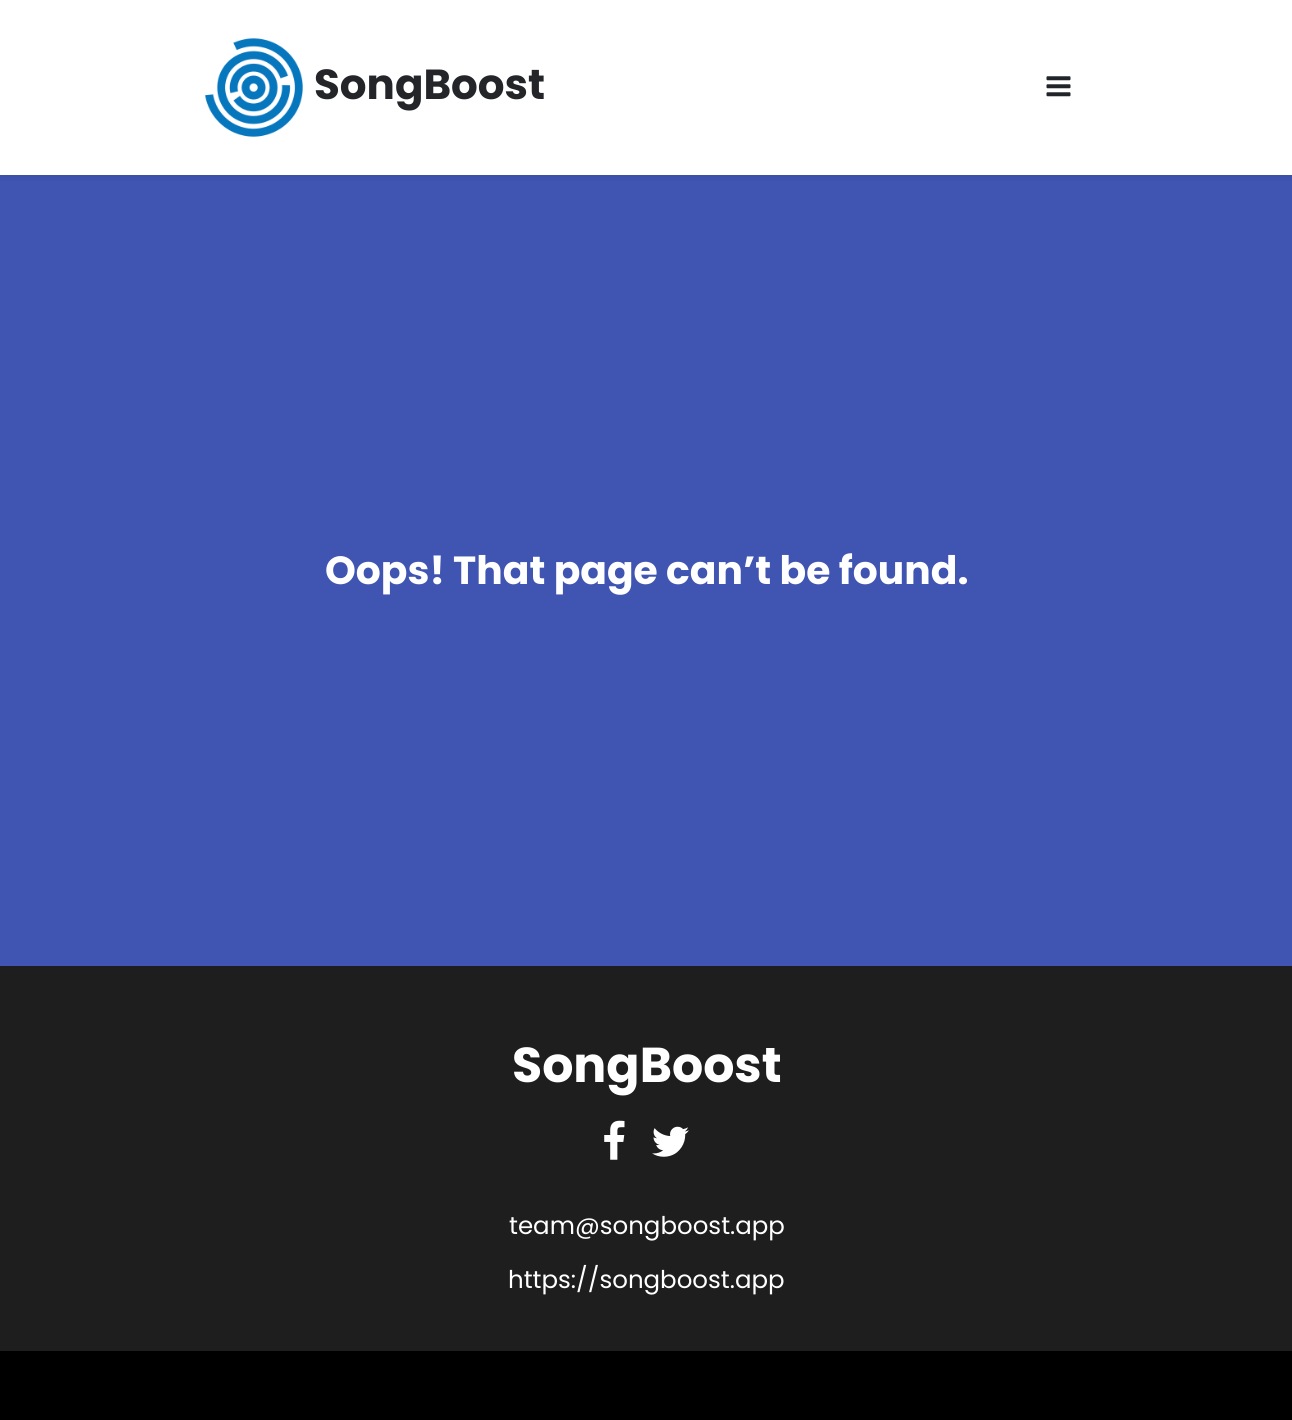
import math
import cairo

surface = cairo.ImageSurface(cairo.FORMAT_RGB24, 1292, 1420)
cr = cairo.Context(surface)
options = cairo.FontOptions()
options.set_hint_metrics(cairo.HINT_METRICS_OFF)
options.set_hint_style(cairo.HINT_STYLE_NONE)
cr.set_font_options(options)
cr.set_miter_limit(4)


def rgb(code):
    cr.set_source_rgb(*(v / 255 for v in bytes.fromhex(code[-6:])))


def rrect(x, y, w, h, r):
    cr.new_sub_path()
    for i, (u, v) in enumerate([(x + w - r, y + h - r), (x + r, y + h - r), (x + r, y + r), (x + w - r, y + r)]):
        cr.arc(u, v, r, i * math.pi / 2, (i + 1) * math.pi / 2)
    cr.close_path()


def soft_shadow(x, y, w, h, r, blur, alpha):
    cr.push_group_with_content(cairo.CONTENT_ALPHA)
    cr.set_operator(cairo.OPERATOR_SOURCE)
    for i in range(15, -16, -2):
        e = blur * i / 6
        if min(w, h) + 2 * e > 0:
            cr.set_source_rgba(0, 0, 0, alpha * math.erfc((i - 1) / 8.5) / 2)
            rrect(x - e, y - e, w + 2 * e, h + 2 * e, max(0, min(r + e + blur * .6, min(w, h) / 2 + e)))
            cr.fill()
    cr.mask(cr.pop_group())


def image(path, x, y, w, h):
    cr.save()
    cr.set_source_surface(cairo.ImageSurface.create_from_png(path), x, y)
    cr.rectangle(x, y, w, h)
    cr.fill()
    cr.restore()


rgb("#ffffff")
cr.paint()
rgb("#4054b2")
cr.rectangle(0, 175, 1292, 791)
cr.fill()
cr.save()
cr.rectangle(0, 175, 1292, 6)
cr.clip()
rgb("#000000")
soft_shadow(0, 4, 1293, 175, 0, 3.5, 0.07)
cr.restore()
image("img/1.png", 204, 38, 99, 99)
image("img/2.png", 1046, 76, 25, 21)
rgb("#1e1e1e")
cr.rectangle(0, 966, 1292, 385)
cr.fill()
image("img/3.png", 604, 1120, 21, 40)
image("img/4.png", 652, 1126, 37, 31)
rgb("#000000")
cr.rectangle(0, 1351, 1292, 69)
cr.fill()
cr.select_font_face("Poppins", cairo.FONT_SLANT_NORMAL, cairo.FONT_WEIGHT_BOLD)
cr.set_font_size(42)
rgb("#232529")
cr.move_to(314, 99)
cr.show_text("SongBoost")
cr.set_font_size(39.25)
rgb("#ffffff")
cr.move_to(325, 584)
cr.show_text("Oops! That page can’t be found.")
cr.set_font_size(49)
cr.move_to(512, 1082)
cr.show_text("SongBoost")
cr.select_font_face("Poppins")
cr.set_font_size(24.5)
cr.move_to(509, 1234)
cr.show_text("team@songboost.app")
cr.move_to(508, 1288)
cr.show_text("https://songboost.app")
surface.write_to_png("page.png")
